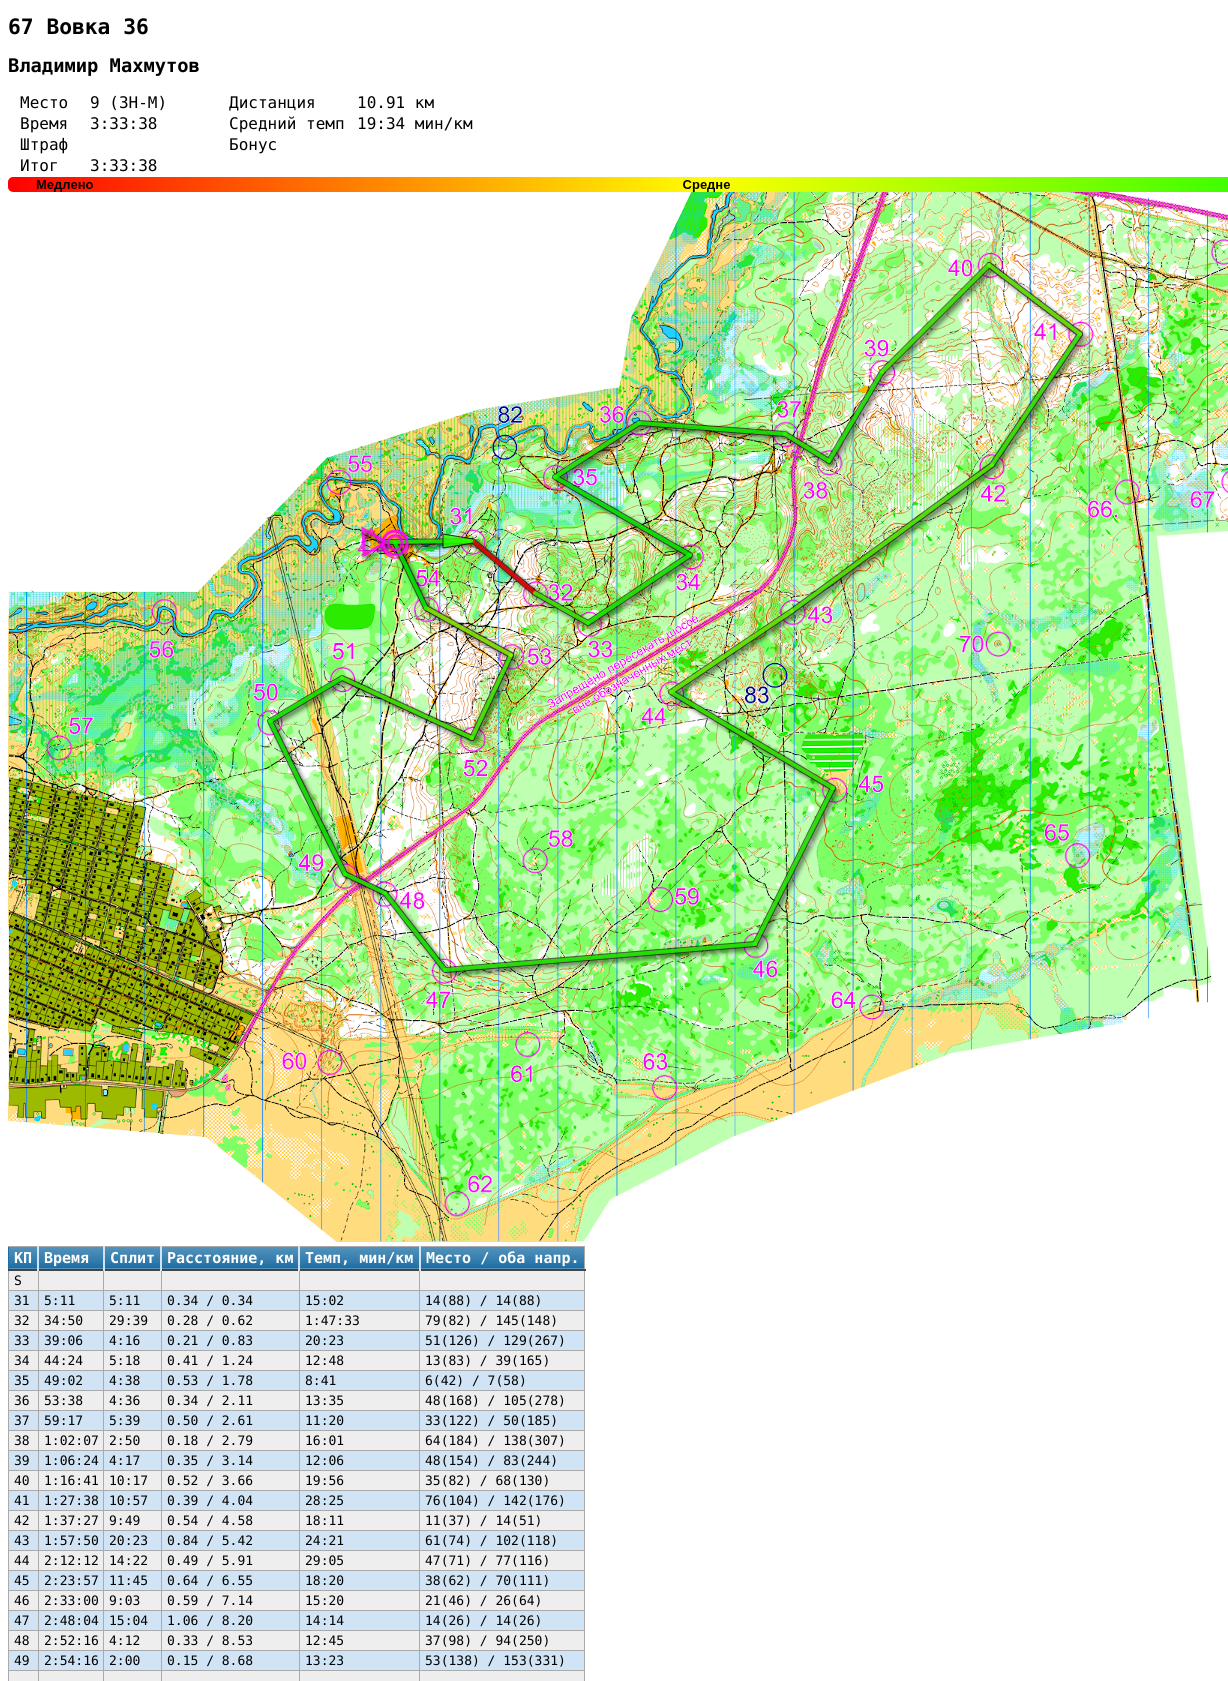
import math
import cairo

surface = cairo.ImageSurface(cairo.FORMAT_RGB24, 1228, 1681)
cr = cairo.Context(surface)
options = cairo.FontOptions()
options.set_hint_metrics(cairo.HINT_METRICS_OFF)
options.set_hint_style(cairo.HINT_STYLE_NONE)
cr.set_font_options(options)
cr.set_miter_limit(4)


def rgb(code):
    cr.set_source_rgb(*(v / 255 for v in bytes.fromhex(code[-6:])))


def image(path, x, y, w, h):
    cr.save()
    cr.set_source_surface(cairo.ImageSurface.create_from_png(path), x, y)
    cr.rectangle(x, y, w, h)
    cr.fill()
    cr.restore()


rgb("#ffffff")
cr.paint()
image("img/1.png", 8, 177, 1220, 1065)
rgb("#eeeeee")
cr.rectangle(9, 1271, 575, 410)
cr.fill()
rgb("#1c6ea4")
cr.rectangle(8, 1246, 1, 23)
cr.fill()
gradient = cairo.LinearGradient(297, 1247, 297, 1268)
gradient.add_color_stop_rgba(0, 0.333, 0.573, 0.733, 1)
gradient.add_color_stop_rgba(0.66, 0.196, 0.486, 0.678, 1)
gradient.add_color_stop_rgba(1, 0.11, 0.431, 0.643, 1)
cr.set_source(gradient)
cr.rectangle(9, 1247, 575, 21)
cr.fill()
gradient = cairo.LinearGradient(297, 1268, 297, 1289)
gradient.add_color_stop_rgba(0, 0.333, 0.573, 0.733, 1)
gradient.add_color_stop_rgba(0.66, 0.196, 0.486, 0.678, 1)
gradient.add_color_stop_rgba(1, 0.11, 0.431, 0.643, 1)
cr.set_source(gradient)
cr.rectangle(9, 1268, 576, 1)
cr.fill()
for x, y, w, h, color in [
    (8, 1246, 577, 1, "#aaaaaa"),
    (419, 1290, 166, 1, "#aaaaaa"),
    (419, 1310, 166, 1, "#aaaaaa"),
    (419, 1330, 166, 1, "#aaaaaa"),
    (419, 1350, 166, 1, "#aaaaaa"),
    (419, 1370, 166, 1, "#aaaaaa"),
    (419, 1390, 166, 1, "#aaaaaa"),
    (419, 1410, 166, 1, "#aaaaaa"),
    (419, 1430, 166, 1, "#aaaaaa"),
    (419, 1450, 166, 1, "#aaaaaa"),
    (419, 1470, 166, 1, "#aaaaaa"),
    (419, 1490, 166, 1, "#aaaaaa"),
    (419, 1510, 166, 1, "#aaaaaa"),
    (419, 1530, 166, 1, "#aaaaaa"),
    (419, 1550, 166, 1, "#aaaaaa"),
    (419, 1570, 166, 1, "#aaaaaa"),
    (419, 1590, 166, 1, "#aaaaaa"),
    (419, 1610, 166, 1, "#aaaaaa"),
    (419, 1630, 166, 1, "#aaaaaa"),
    (419, 1650, 166, 1, "#aaaaaa"),
    (419, 1670, 166, 1, "#aaaaaa"),
    (584, 1670, 1, 11, "#aaaaaa"),
    (584, 1650, 1, 21, "#aaaaaa"),
    (584, 1630, 1, 21, "#aaaaaa"),
    (584, 1610, 1, 21, "#aaaaaa"),
    (584, 1590, 1, 21, "#aaaaaa"),
    (584, 1570, 1, 21, "#aaaaaa"),
    (584, 1550, 1, 21, "#aaaaaa"),
    (584, 1530, 1, 21, "#aaaaaa"),
    (584, 1510, 1, 21, "#aaaaaa"),
    (584, 1490, 1, 21, "#aaaaaa"),
    (584, 1470, 1, 21, "#aaaaaa"),
    (584, 1450, 1, 21, "#aaaaaa"),
    (584, 1430, 1, 21, "#aaaaaa"),
    (584, 1410, 1, 21, "#aaaaaa"),
    (584, 1390, 1, 21, "#aaaaaa"),
    (584, 1370, 1, 21, "#aaaaaa"),
    (584, 1350, 1, 21, "#aaaaaa"),
    (584, 1330, 1, 21, "#aaaaaa"),
    (584, 1310, 1, 21, "#aaaaaa"),
    (584, 1270, 1, 41, "#aaaaaa"),
    (584, 1246, 1, 25, "#aaaaaa"),
    (9, 1291, 575, 19, "#d0e4f5"),
    (9, 1331, 575, 19, "#d0e4f5"),
    (9, 1371, 575, 19, "#d0e4f5"),
    (9, 1411, 575, 19, "#d0e4f5"),
    (9, 1451, 575, 19, "#d0e4f5"),
    (9, 1491, 575, 19, "#d0e4f5"),
    (9, 1531, 575, 19, "#d0e4f5"),
    (9, 1571, 575, 19, "#d0e4f5"),
    (9, 1611, 575, 19, "#d0e4f5"),
    (9, 1651, 575, 19, "#d0e4f5"),
    (419, 1670, 1, 11, "#aaaaaa"),
    (299, 1670, 121, 1, "#aaaaaa"),
    (419, 1650, 1, 21, "#aaaaaa"),
    (299, 1650, 121, 1, "#aaaaaa"),
    (419, 1630, 1, 21, "#aaaaaa"),
    (299, 1630, 121, 1, "#aaaaaa"),
    (419, 1610, 1, 21, "#aaaaaa"),
    (299, 1610, 121, 1, "#aaaaaa"),
    (419, 1590, 1, 21, "#aaaaaa"),
    (299, 1590, 121, 1, "#aaaaaa"),
    (419, 1570, 1, 21, "#aaaaaa"),
    (299, 1570, 121, 1, "#aaaaaa"),
    (419, 1550, 1, 21, "#aaaaaa"),
    (299, 1550, 121, 1, "#aaaaaa"),
    (419, 1530, 1, 21, "#aaaaaa"),
    (299, 1530, 121, 1, "#aaaaaa"),
    (419, 1510, 1, 21, "#aaaaaa"),
    (299, 1510, 121, 1, "#aaaaaa"),
    (419, 1490, 1, 21, "#aaaaaa"),
    (299, 1490, 121, 1, "#aaaaaa"),
    (419, 1470, 1, 21, "#aaaaaa"),
    (299, 1470, 121, 1, "#aaaaaa"),
    (419, 1450, 1, 21, "#aaaaaa"),
    (299, 1450, 121, 1, "#aaaaaa"),
    (419, 1430, 1, 21, "#aaaaaa"),
    (299, 1430, 121, 1, "#aaaaaa"),
    (419, 1410, 1, 21, "#aaaaaa"),
    (299, 1410, 121, 1, "#aaaaaa"),
    (419, 1390, 1, 21, "#aaaaaa"),
    (299, 1390, 121, 1, "#aaaaaa"),
    (419, 1370, 1, 21, "#aaaaaa"),
    (299, 1370, 121, 1, "#aaaaaa"),
    (419, 1350, 1, 21, "#aaaaaa"),
    (299, 1350, 121, 1, "#aaaaaa"),
    (419, 1330, 1, 21, "#aaaaaa"),
    (299, 1330, 121, 1, "#aaaaaa"),
    (419, 1310, 1, 21, "#aaaaaa"),
    (299, 1310, 121, 1, "#aaaaaa"),
    (419, 1290, 1, 21, "#aaaaaa"),
    (299, 1290, 121, 1, "#aaaaaa"),
    (299, 1670, 1, 11, "#aaaaaa"),
    (161, 1670, 139, 1, "#aaaaaa"),
    (299, 1650, 1, 21, "#aaaaaa"),
    (161, 1650, 139, 1, "#aaaaaa"),
    (299, 1630, 1, 21, "#aaaaaa"),
    (161, 1630, 139, 1, "#aaaaaa"),
    (299, 1610, 1, 21, "#aaaaaa"),
    (161, 1610, 139, 1, "#aaaaaa"),
    (299, 1590, 1, 21, "#aaaaaa"),
    (161, 1590, 139, 1, "#aaaaaa"),
    (299, 1570, 1, 21, "#aaaaaa"),
    (161, 1570, 139, 1, "#aaaaaa"),
    (299, 1550, 1, 21, "#aaaaaa"),
    (161, 1550, 139, 1, "#aaaaaa"),
    (299, 1530, 1, 21, "#aaaaaa"),
    (161, 1530, 139, 1, "#aaaaaa"),
    (299, 1510, 1, 21, "#aaaaaa"),
    (161, 1510, 139, 1, "#aaaaaa"),
    (299, 1490, 1, 21, "#aaaaaa"),
    (161, 1490, 139, 1, "#aaaaaa"),
    (299, 1470, 1, 21, "#aaaaaa"),
    (161, 1470, 139, 1, "#aaaaaa"),
    (299, 1450, 1, 21, "#aaaaaa"),
    (161, 1450, 139, 1, "#aaaaaa"),
    (299, 1430, 1, 21, "#aaaaaa"),
    (161, 1430, 139, 1, "#aaaaaa"),
    (299, 1410, 1, 21, "#aaaaaa"),
    (161, 1410, 139, 1, "#aaaaaa"),
    (299, 1390, 1, 21, "#aaaaaa"),
    (161, 1390, 139, 1, "#aaaaaa"),
    (299, 1370, 1, 21, "#aaaaaa"),
    (161, 1370, 139, 1, "#aaaaaa"),
    (299, 1350, 1, 21, "#aaaaaa"),
    (161, 1350, 139, 1, "#aaaaaa"),
    (299, 1330, 1, 21, "#aaaaaa"),
    (161, 1330, 139, 1, "#aaaaaa"),
    (299, 1310, 1, 21, "#aaaaaa"),
    (161, 1310, 139, 1, "#aaaaaa"),
    (299, 1290, 1, 21, "#aaaaaa"),
    (161, 1290, 139, 1, "#aaaaaa"),
    (161, 1670, 1, 11, "#aaaaaa"),
    (103, 1670, 59, 1, "#aaaaaa"),
    (161, 1650, 1, 21, "#aaaaaa"),
    (103, 1650, 59, 1, "#aaaaaa"),
    (161, 1630, 1, 21, "#aaaaaa"),
    (103, 1630, 59, 1, "#aaaaaa"),
    (161, 1610, 1, 21, "#aaaaaa"),
    (103, 1610, 59, 1, "#aaaaaa"),
    (161, 1590, 1, 21, "#aaaaaa"),
    (103, 1590, 59, 1, "#aaaaaa"),
    (161, 1570, 1, 21, "#aaaaaa"),
    (103, 1570, 59, 1, "#aaaaaa"),
    (161, 1550, 1, 21, "#aaaaaa"),
    (103, 1550, 59, 1, "#aaaaaa"),
    (161, 1530, 1, 21, "#aaaaaa"),
    (103, 1530, 59, 1, "#aaaaaa"),
    (161, 1510, 1, 21, "#aaaaaa"),
    (103, 1510, 59, 1, "#aaaaaa"),
    (161, 1490, 1, 21, "#aaaaaa"),
    (103, 1490, 59, 1, "#aaaaaa"),
    (161, 1470, 1, 21, "#aaaaaa"),
    (103, 1470, 59, 1, "#aaaaaa"),
    (161, 1450, 1, 21, "#aaaaaa"),
    (103, 1450, 59, 1, "#aaaaaa"),
    (161, 1430, 1, 21, "#aaaaaa"),
    (103, 1430, 59, 1, "#aaaaaa"),
    (161, 1410, 1, 21, "#aaaaaa"),
    (103, 1410, 59, 1, "#aaaaaa"),
    (161, 1390, 1, 21, "#aaaaaa"),
    (103, 1390, 59, 1, "#aaaaaa"),
    (161, 1370, 1, 21, "#aaaaaa"),
    (103, 1370, 59, 1, "#aaaaaa"),
    (161, 1350, 1, 21, "#aaaaaa"),
    (103, 1350, 59, 1, "#aaaaaa"),
    (161, 1330, 1, 21, "#aaaaaa"),
    (103, 1330, 59, 1, "#aaaaaa"),
    (161, 1310, 1, 21, "#aaaaaa"),
    (103, 1310, 59, 1, "#aaaaaa"),
    (161, 1290, 1, 21, "#aaaaaa"),
    (103, 1290, 59, 1, "#aaaaaa"),
    (103, 1670, 1, 11, "#aaaaaa"),
    (38, 1670, 66, 1, "#aaaaaa"),
    (103, 1650, 1, 21, "#aaaaaa"),
    (38, 1650, 66, 1, "#aaaaaa"),
    (103, 1630, 1, 21, "#aaaaaa"),
    (38, 1630, 66, 1, "#aaaaaa"),
    (103, 1610, 1, 21, "#aaaaaa"),
    (38, 1610, 66, 1, "#aaaaaa"),
    (103, 1590, 1, 21, "#aaaaaa"),
    (38, 1590, 66, 1, "#aaaaaa"),
    (103, 1570, 1, 21, "#aaaaaa"),
    (38, 1570, 66, 1, "#aaaaaa"),
    (103, 1550, 1, 21, "#aaaaaa"),
    (38, 1550, 66, 1, "#aaaaaa"),
    (103, 1530, 1, 21, "#aaaaaa"),
    (38, 1530, 66, 1, "#aaaaaa"),
    (103, 1510, 1, 21, "#aaaaaa"),
    (38, 1510, 66, 1, "#aaaaaa"),
    (103, 1490, 1, 21, "#aaaaaa"),
    (38, 1490, 66, 1, "#aaaaaa"),
    (103, 1470, 1, 21, "#aaaaaa"),
    (38, 1470, 66, 1, "#aaaaaa"),
    (103, 1450, 1, 21, "#aaaaaa"),
    (38, 1450, 66, 1, "#aaaaaa"),
    (103, 1430, 1, 21, "#aaaaaa"),
    (38, 1430, 66, 1, "#aaaaaa"),
    (103, 1410, 1, 21, "#aaaaaa"),
    (38, 1410, 66, 1, "#aaaaaa"),
    (103, 1390, 1, 21, "#aaaaaa"),
    (38, 1390, 66, 1, "#aaaaaa"),
    (103, 1370, 1, 21, "#aaaaaa"),
    (38, 1370, 66, 1, "#aaaaaa"),
    (103, 1350, 1, 21, "#aaaaaa"),
    (38, 1350, 66, 1, "#aaaaaa"),
    (103, 1330, 1, 21, "#aaaaaa"),
    (38, 1330, 66, 1, "#aaaaaa"),
    (103, 1310, 1, 21, "#aaaaaa"),
    (38, 1310, 66, 1, "#aaaaaa"),
    (103, 1290, 1, 21, "#aaaaaa"),
    (38, 1290, 66, 1, "#aaaaaa"),
    (38, 1670, 1, 11, "#aaaaaa"),
    (8, 1670, 31, 1, "#aaaaaa"),
    (38, 1650, 1, 21, "#aaaaaa"),
    (8, 1650, 31, 1, "#aaaaaa"),
    (38, 1630, 1, 21, "#aaaaaa"),
    (8, 1630, 31, 1, "#aaaaaa"),
    (38, 1610, 1, 21, "#aaaaaa"),
    (8, 1610, 31, 1, "#aaaaaa"),
    (38, 1590, 1, 21, "#aaaaaa"),
    (8, 1590, 31, 1, "#aaaaaa"),
    (38, 1570, 1, 21, "#aaaaaa"),
    (8, 1570, 31, 1, "#aaaaaa"),
    (38, 1550, 1, 21, "#aaaaaa"),
    (8, 1550, 31, 1, "#aaaaaa"),
    (38, 1530, 1, 21, "#aaaaaa"),
    (8, 1530, 31, 1, "#aaaaaa"),
    (38, 1510, 1, 21, "#aaaaaa"),
    (8, 1510, 31, 1, "#aaaaaa"),
    (38, 1490, 1, 21, "#aaaaaa"),
    (8, 1490, 31, 1, "#aaaaaa"),
    (38, 1470, 1, 21, "#aaaaaa"),
    (8, 1470, 31, 1, "#aaaaaa"),
    (38, 1450, 1, 21, "#aaaaaa"),
    (8, 1450, 31, 1, "#aaaaaa"),
    (38, 1430, 1, 21, "#aaaaaa"),
    (8, 1430, 31, 1, "#aaaaaa"),
    (38, 1410, 1, 21, "#aaaaaa"),
    (8, 1410, 31, 1, "#aaaaaa"),
    (38, 1390, 1, 21, "#aaaaaa"),
    (8, 1390, 31, 1, "#aaaaaa"),
    (38, 1370, 1, 21, "#aaaaaa"),
    (8, 1370, 31, 1, "#aaaaaa"),
    (38, 1350, 1, 21, "#aaaaaa"),
    (8, 1350, 31, 1, "#aaaaaa"),
    (38, 1330, 1, 21, "#aaaaaa"),
    (8, 1330, 31, 1, "#aaaaaa"),
    (38, 1310, 1, 21, "#aaaaaa"),
    (8, 1310, 31, 1, "#aaaaaa"),
    (38, 1290, 1, 21, "#aaaaaa"),
    (8, 1290, 31, 1, "#aaaaaa"),
    (38, 1270, 1, 21, "#aaaaaa"),
    (103, 1270, 1, 21, "#aaaaaa"),
    (161, 1270, 1, 21, "#aaaaaa"),
    (299, 1270, 1, 21, "#aaaaaa"),
    (419, 1270, 1, 21, "#aaaaaa"),
    (8, 1670, 1, 11, "#aaaaaa"),
    (8, 1650, 1, 21, "#aaaaaa"),
    (8, 1630, 1, 21, "#aaaaaa"),
    (8, 1610, 1, 21, "#aaaaaa"),
    (8, 1590, 1, 21, "#aaaaaa"),
    (8, 1570, 1, 21, "#aaaaaa"),
    (8, 1550, 1, 21, "#aaaaaa"),
    (8, 1530, 1, 21, "#aaaaaa"),
    (8, 1510, 1, 21, "#aaaaaa"),
    (8, 1490, 1, 21, "#aaaaaa"),
    (8, 1470, 1, 21, "#aaaaaa"),
    (8, 1450, 1, 21, "#aaaaaa"),
    (8, 1430, 1, 21, "#aaaaaa"),
    (8, 1410, 1, 21, "#aaaaaa"),
    (8, 1390, 1, 21, "#aaaaaa"),
    (8, 1370, 1, 21, "#aaaaaa"),
    (8, 1350, 1, 21, "#aaaaaa"),
    (8, 1330, 1, 21, "#aaaaaa"),
    (8, 1310, 1, 21, "#aaaaaa"),
    (8, 1270, 1, 41, "#aaaaaa"),
    (8, 1269, 578, 2, "#444444"),
    (37, 1246, 2, 25, "#d0e4f5"),
    (103, 1246, 2, 25, "#d0e4f5"),
    (160, 1246, 2, 25, "#d0e4f5"),
    (298, 1246, 2, 25, "#d0e4f5"),
    (419, 1246, 2, 25, "#d0e4f5"),
]:
    rgb(color)
    cr.rectangle(x, y, w, h)
    cr.fill()
cr.select_font_face("DejaVu Sans Mono", cairo.FONT_SLANT_NORMAL, cairo.FONT_WEIGHT_BOLD)
cr.set_font_size(21.25)
rgb("#000000")
cr.move_to(8, 34)
cr.show_text("67 Вовка 36")
cr.set_font_size(18.75)
cr.move_to(8, 72)
cr.show_text("Владимир Махмутов")
cr.select_font_face("DejaVu Sans Mono")
cr.set_font_size(16)
for x, y, s in [
    (20, 108, "Место"),
    (90, 108, "9 (ЗН-М)"),
    (229, 108, "Дистанция"),
    (357, 108, "10.91 км"),
    (20, 129, "Время"),
    (90, 129, "3:33:38"),
    (229, 129, "Средний темп"),
    (357, 129, "19:34 мин/км"),
    (20, 150, "Штраф"),
    (229, 150, "Бонус"),
    (20, 171, "Итог"),
    (90, 171, "3:33:38"),
]:
    cr.move_to(x, y)
    cr.show_text(s)
cr.select_font_face("DejaVu Sans Mono", cairo.FONT_SLANT_NORMAL, cairo.FONT_WEIGHT_BOLD)
cr.set_font_size(15)
rgb("#ffffff")
for x, y, s in [
    (14, 1263, "КП"),
    (44, 1263, "Время"),
    (110, 1263, "Сплит"),
    (167, 1263, "Расстояние, км"),
    (305, 1263, "Темп, мин/км"),
    (426, 1263, "Место / оба напр."),
]:
    cr.move_to(x, y)
    cr.show_text(s)
cr.select_font_face("DejaVu Sans Mono")
cr.set_font_size(13)
rgb("#000000")
for x, y, s in [
    (14, 1285, "S"),
    (14, 1305, "31"),
    (44, 1305, "5:11"),
    (109, 1305, "5:11"),
    (167, 1305, "0.34 / 0.34"),
    (305, 1305, "15:02"),
    (425, 1305, "14(88) / 14(88)"),
    (14, 1325, "32"),
    (44, 1325, "34:50"),
    (109, 1325, "29:39"),
    (167, 1325, "0.28 / 0.62"),
    (305, 1325, "1:47:33"),
    (425, 1325, "79(82) / 145(148)"),
    (14, 1345, "33"),
    (44, 1345, "39:06"),
    (109, 1345, "4:16"),
    (167, 1345, "0.21 / 0.83"),
    (305, 1345, "20:23"),
    (425, 1345, "51(126) / 129(267)"),
    (14, 1365, "34"),
    (44, 1365, "44:24"),
    (109, 1365, "5:18"),
    (167, 1365, "0.41 / 1.24"),
    (305, 1365, "12:48"),
    (425, 1365, "13(83) / 39(165)"),
    (14, 1385, "35"),
    (44, 1385, "49:02"),
    (109, 1385, "4:38"),
    (167, 1385, "0.53 / 1.78"),
    (305, 1385, "8:41"),
    (425, 1385, "6(42) / 7(58)"),
    (14, 1405, "36"),
    (44, 1405, "53:38"),
    (109, 1405, "4:36"),
    (167, 1405, "0.34 / 2.11"),
    (305, 1405, "13:35"),
    (425, 1405, "48(168) / 105(278)"),
    (14, 1425, "37"),
    (44, 1425, "59:17"),
    (109, 1425, "5:39"),
    (167, 1425, "0.50 / 2.61"),
    (305, 1425, "11:20"),
    (425, 1425, "33(122) / 50(185)"),
    (14, 1445, "38"),
    (44, 1445, "1:02:07"),
    (109, 1445, "2:50"),
    (167, 1445, "0.18 / 2.79"),
    (305, 1445, "16:01"),
    (425, 1445, "64(184) / 138(307)"),
    (14, 1465, "39"),
    (44, 1465, "1:06:24"),
    (109, 1465, "4:17"),
    (167, 1465, "0.35 / 3.14"),
    (305, 1465, "12:06"),
    (425, 1465, "48(154) / 83(244)"),
    (14, 1485, "40"),
    (44, 1485, "1:16:41"),
    (109, 1485, "10:17"),
    (167, 1485, "0.52 / 3.66"),
    (305, 1485, "19:56"),
    (425, 1485, "35(82) / 68(130)"),
    (14, 1505, "41"),
    (44, 1505, "1:27:38"),
    (109, 1505, "10:57"),
    (167, 1505, "0.39 / 4.04"),
    (305, 1505, "28:25"),
    (425, 1505, "76(104) / 142(176)"),
    (14, 1525, "42"),
    (44, 1525, "1:37:27"),
    (109, 1525, "9:49"),
    (167, 1525, "0.54 / 4.58"),
    (305, 1525, "18:11"),
    (425, 1525, "11(37) / 14(51)"),
    (14, 1545, "43"),
    (44, 1545, "1:57:50"),
    (109, 1545, "20:23"),
    (167, 1545, "0.84 / 5.42"),
    (305, 1545, "24:21"),
    (425, 1545, "61(74) / 102(118)"),
    (14, 1565, "44"),
    (44, 1565, "2:12:12"),
    (109, 1565, "14:22"),
    (167, 1565, "0.49 / 5.91"),
    (305, 1565, "29:05"),
    (425, 1565, "47(71) / 77(116)"),
    (14, 1585, "45"),
    (44, 1585, "2:23:57"),
    (109, 1585, "11:45"),
    (167, 1585, "0.64 / 6.55"),
    (305, 1585, "18:20"),
    (425, 1585, "38(62) / 70(111)"),
    (14, 1605, "46"),
    (44, 1605, "2:33:00"),
    (109, 1605, "9:03"),
    (167, 1605, "0.59 / 7.14"),
    (305, 1605, "15:20"),
    (425, 1605, "21(46) / 26(64)"),
    (14, 1625, "47"),
    (44, 1625, "2:48:04"),
    (109, 1625, "15:04"),
    (167, 1625, "1.06 / 8.20"),
    (305, 1625, "14:14"),
    (425, 1625, "14(26) / 14(26)"),
    (14, 1645, "48"),
    (44, 1645, "2:52:16"),
    (109, 1645, "4:12"),
    (167, 1645, "0.33 / 8.53"),
    (305, 1645, "12:45"),
    (425, 1645, "37(98) / 94(250)"),
    (14, 1665, "49"),
    (44, 1665, "2:54:16"),
    (109, 1665, "2:00"),
    (167, 1665, "0.15 / 8.68"),
    (305, 1665, "13:23"),
    (425, 1665, "53(138) / 153(331)"),
]:
    cr.move_to(x, y)
    cr.show_text(s)
surface.write_to_png("page.png")
